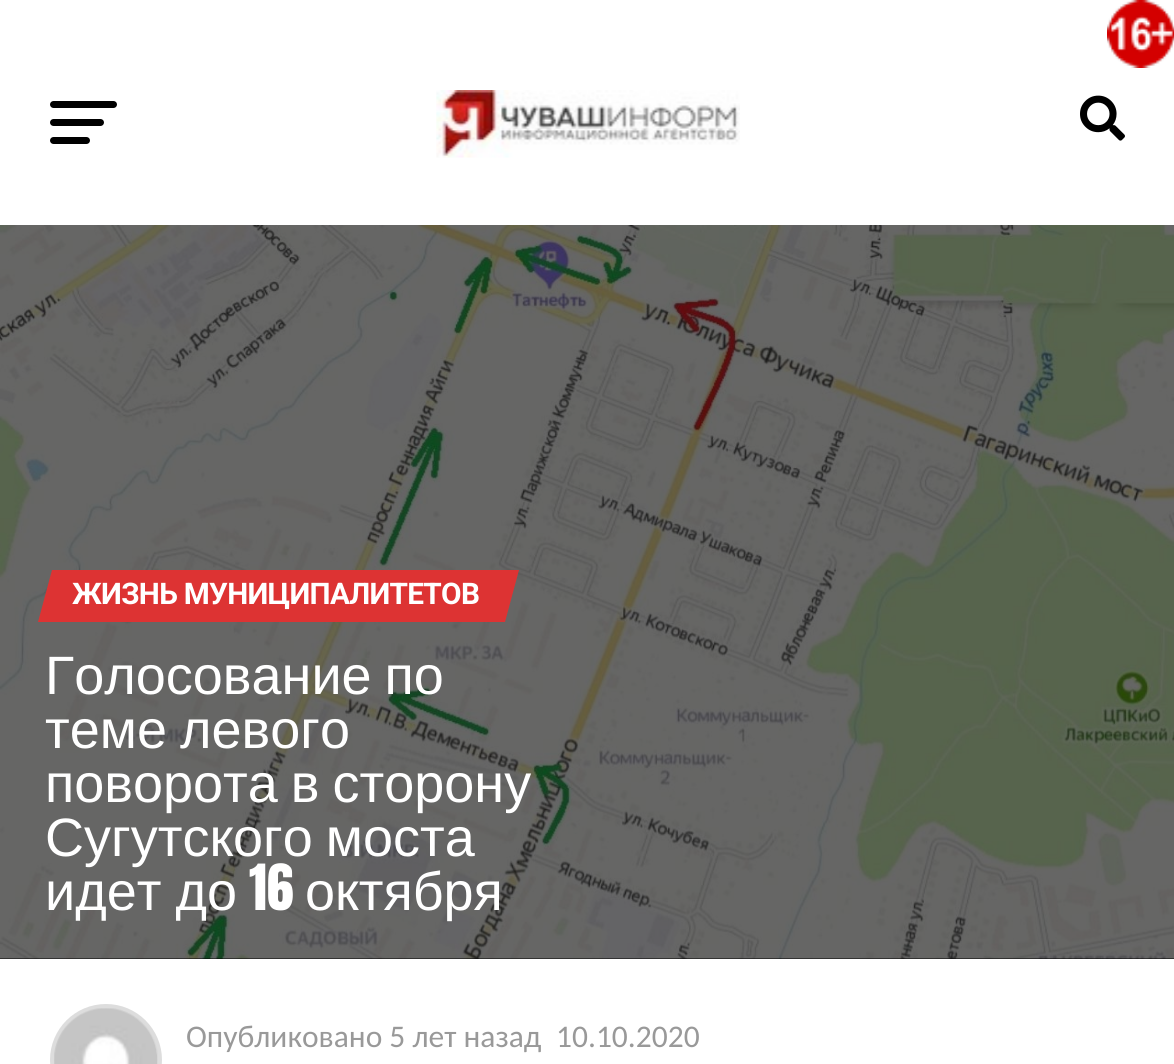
import math
import cairo

surface = cairo.ImageSurface(cairo.FORMAT_RGB24, 1174, 1064)
cr = cairo.Context(surface)
options = cairo.FontOptions()
options.set_hint_metrics(cairo.HINT_METRICS_OFF)
options.set_hint_style(cairo.HINT_STYLE_NONE)
cr.set_font_options(options)
cr.set_miter_limit(4)


def rgb(code):
    cr.set_source_rgb(*(v / 255 for v in bytes.fromhex(code[-6:])))


def tracked(x, y, s, letter, word):
    cr.move_to(x, y)
    for ch in s:
        cr.show_text(ch)
        cr.rel_move_to(letter + word * (ch == ' '), 0)


def rrect(x, y, w, h, r):
    cr.new_sub_path()
    for i, (u, v) in enumerate([(x + w - r, y + h - r), (x + r, y + h - r), (x + r, y + r), (x + w - r, y + r)]):
        cr.arc(u, v, r, i * math.pi / 2, (i + 1) * math.pi / 2)
    cr.close_path()


def image(path, x, y, w, h):
    cr.save()
    cr.set_source_surface(cairo.ImageSurface.create_from_png(path), x, y)
    cr.rectangle(x, y, w, h)
    cr.fill()
    cr.restore()


rgb("#ffffff")
cr.paint()
image("img/1.png", 1107, 0, 67, 68)
rgb("#000000")
rrect(50, 101, 67, 7, 3.5)
cr.fill()
rrect(50, 119, 54, 7, 3.5)
cr.fill()
rrect(50, 137, 40, 7, 3.5)
cr.fill()
image("img/2.png", 436, 90, 304, 68)
image("img/3.png", 1080, 95, 45, 46)
cr.rectangle(0, 225, 1174, 734)
cr.fill()
image("img/4.png", 0, 225, 1174, 734)
rgb("#dd3333")
cr.new_path()
cr.move_to(52, 570)
cr.line_to(519, 570)
cr.line_to(505, 622)
cr.line_to(38, 622)
cr.close_path()
cr.fill()
cr.arc(106, 1060, 53.5, 0, 2 * math.pi)
rgb("#dddddd")
cr.set_line_width(5)
cr.stroke()
image("img/5.png", 54, 1008, 104, 56)
cr.select_font_face("Roboto", cairo.FONT_SLANT_NORMAL, cairo.FONT_WEIGHT_BOLD)
cr.set_font_size(29.75)
rgb("#ffffff")
tracked(72, 604, "ЖИЗНЬ МУНИЦИПАЛИТЕТОВ", -0.7, 0)
cr.select_font_face("Liberation Sans")
cr.set_font_size(54)
for x, y, s in [
    (45, 694, "Голосование по"),
    (45, 748, "теме левого"),
    (45, 802, "поворота в сторону"),
    (45, 856, "Сугутского моста"),
]:
    tracked(x, y, s, 0, -2)
tracked(45, 910, "идет до", 0, -1)
cr.select_font_face("Anton")
cr.move_to(249, 910)
cr.show_text("16")
cr.select_font_face("Liberation Sans")
cr.move_to(305, 910)
cr.show_text("октября")
cr.select_font_face("Carlito")
cr.set_font_size(31.5)
rgb("#999999")
cr.move_to(186, 1047)
cr.show_text("Опубликовано 5 лет назад")
cr.move_to(556, 1047)
cr.show_text("10.10.2020")
surface.write_to_png("page.png")
